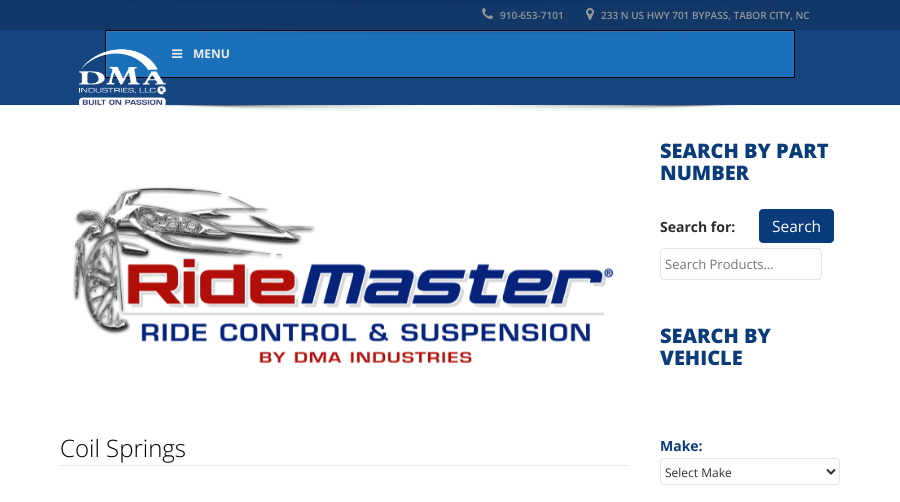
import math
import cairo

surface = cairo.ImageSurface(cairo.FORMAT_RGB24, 900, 502)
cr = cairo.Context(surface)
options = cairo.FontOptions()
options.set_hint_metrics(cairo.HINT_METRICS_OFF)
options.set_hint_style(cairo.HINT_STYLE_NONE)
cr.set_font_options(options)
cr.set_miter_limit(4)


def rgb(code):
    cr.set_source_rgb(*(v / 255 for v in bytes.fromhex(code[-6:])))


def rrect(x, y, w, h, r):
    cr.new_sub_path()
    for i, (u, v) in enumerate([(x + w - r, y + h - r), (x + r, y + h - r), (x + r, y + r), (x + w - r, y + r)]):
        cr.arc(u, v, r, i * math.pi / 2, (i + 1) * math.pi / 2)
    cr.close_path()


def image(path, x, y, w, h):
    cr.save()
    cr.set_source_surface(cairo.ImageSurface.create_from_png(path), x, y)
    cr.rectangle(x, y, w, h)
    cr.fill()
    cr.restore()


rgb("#ffffff")
cr.paint()
rgb("#164682")
cr.rectangle(0, 30, 900, 75)
cr.fill()
rgb("#123868")
cr.rectangle(0, 0, 900, 30)
cr.fill()
image("img/1.png", 0, 0, 900, 12)
image("img/2.png", 482, 8, 11, 11)
image("img/3.png", 586, 8, 8, 12)
rgb("#1b70ba")
cr.rectangle(107, 32, 687, 45)
cr.fill()
cr.save()
cr.rectangle(106, 31, 688, 46)
cr.clip()
rgb("#327ec1")
cr.set_fill_rule(cairo.FILL_RULE_EVEN_ODD)
cr.new_path()
cr.move_to(7, -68)
cr.line_to(893, -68)
cr.line_to(893, 176)
cr.line_to(7, 176)
cr.close_path()
cr.move_to(107, 32)
cr.line_to(795, 32)
cr.line_to(795, 78)
cr.line_to(107, 78)
cr.close_path()
cr.fill()
cr.restore()
cr.rectangle(105.5, 30.5, 689, 47)
rgb("#000000")
cr.set_line_width(1)
cr.stroke()
image("img/4.png", 159, 31, 574, 4)
image("img/7.png", 164, 105, 587, 6)
image("img/5.png", 78, 49, 88, 57)
image("img/6.png", 172, 49, 11, 9)
image("img/8.png", 72, 186, 541, 178)
rgb("#ebebeb")
cr.rectangle(60, 465, 570, 1)
cr.fill()
rgb("#0a3c7b")
rrect(759, 209, 75, 34, 4)
cr.fill()
rrect(660.5, 248.5, 161, 31, 3.5)
rgb("#e4e4e4")
cr.stroke()
rrect(660.5, 458.5, 179, 26, 3.5)
cr.stroke()
cr.new_path()
cr.move_to(827, 469.5)
cr.line_to(831, 473.5)
cr.line_to(835, 469.5)
rgb("#2d2d2d")
cr.set_line_width(2)
cr.stroke()
cr.select_font_face("Open Sans SemiBold")
cr.set_font_size(10)
rgb("#929596")
cr.move_to(500, 19)
cr.show_text("910-653-7101")
cr.move_to(601, 19)
cr.show_text("233 N US HWY 701 BYPASS, TABOR CITY, NC")
cr.select_font_face("Open Sans", cairo.FONT_SLANT_NORMAL, cairo.FONT_WEIGHT_BOLD)
cr.set_font_size(12)
rgb("#eeeeee")
cr.move_to(193, 58)
cr.show_text("MENU")
cr.select_font_face("Open Sans Light")
cr.set_font_size(24)
rgb("#000000")
cr.move_to(60, 457)
cr.show_text("Coil Springs")
cr.select_font_face("Open Sans ExtraBold")
cr.set_font_size(20)
rgb("#0a3c7b")
cr.move_to(660, 158)
cr.show_text("SEARCH BY PART")
cr.move_to(660, 180)
cr.show_text("NUMBER")
cr.select_font_face("Open Sans", cairo.FONT_SLANT_NORMAL, cairo.FONT_WEIGHT_BOLD)
cr.set_font_size(14)
rgb("#2d2d2d")
cr.move_to(660, 232)
cr.show_text("Search for:")
cr.select_font_face("Open Sans")
cr.set_font_size(15.5)
rgb("#ffffff")
cr.move_to(772, 232)
cr.show_text("Search")
cr.set_font_size(13)
rgb("#757575")
cr.move_to(665, 269)
cr.show_text("Search Products…")
cr.select_font_face("Open Sans ExtraBold")
cr.set_font_size(20)
rgb("#0a3c7b")
cr.move_to(660, 343)
cr.show_text("SEARCH BY")
cr.move_to(660, 365)
cr.show_text("VEHICLE")
cr.select_font_face("Open Sans", cairo.FONT_SLANT_NORMAL, cairo.FONT_WEIGHT_BOLD)
cr.set_font_size(14)
cr.move_to(660, 451)
cr.show_text("Make:")
cr.select_font_face("Open Sans")
cr.set_font_size(12)
rgb("#2d2d2d")
cr.move_to(665, 477)
cr.show_text("Select Make")
surface.write_to_png("page.png")
